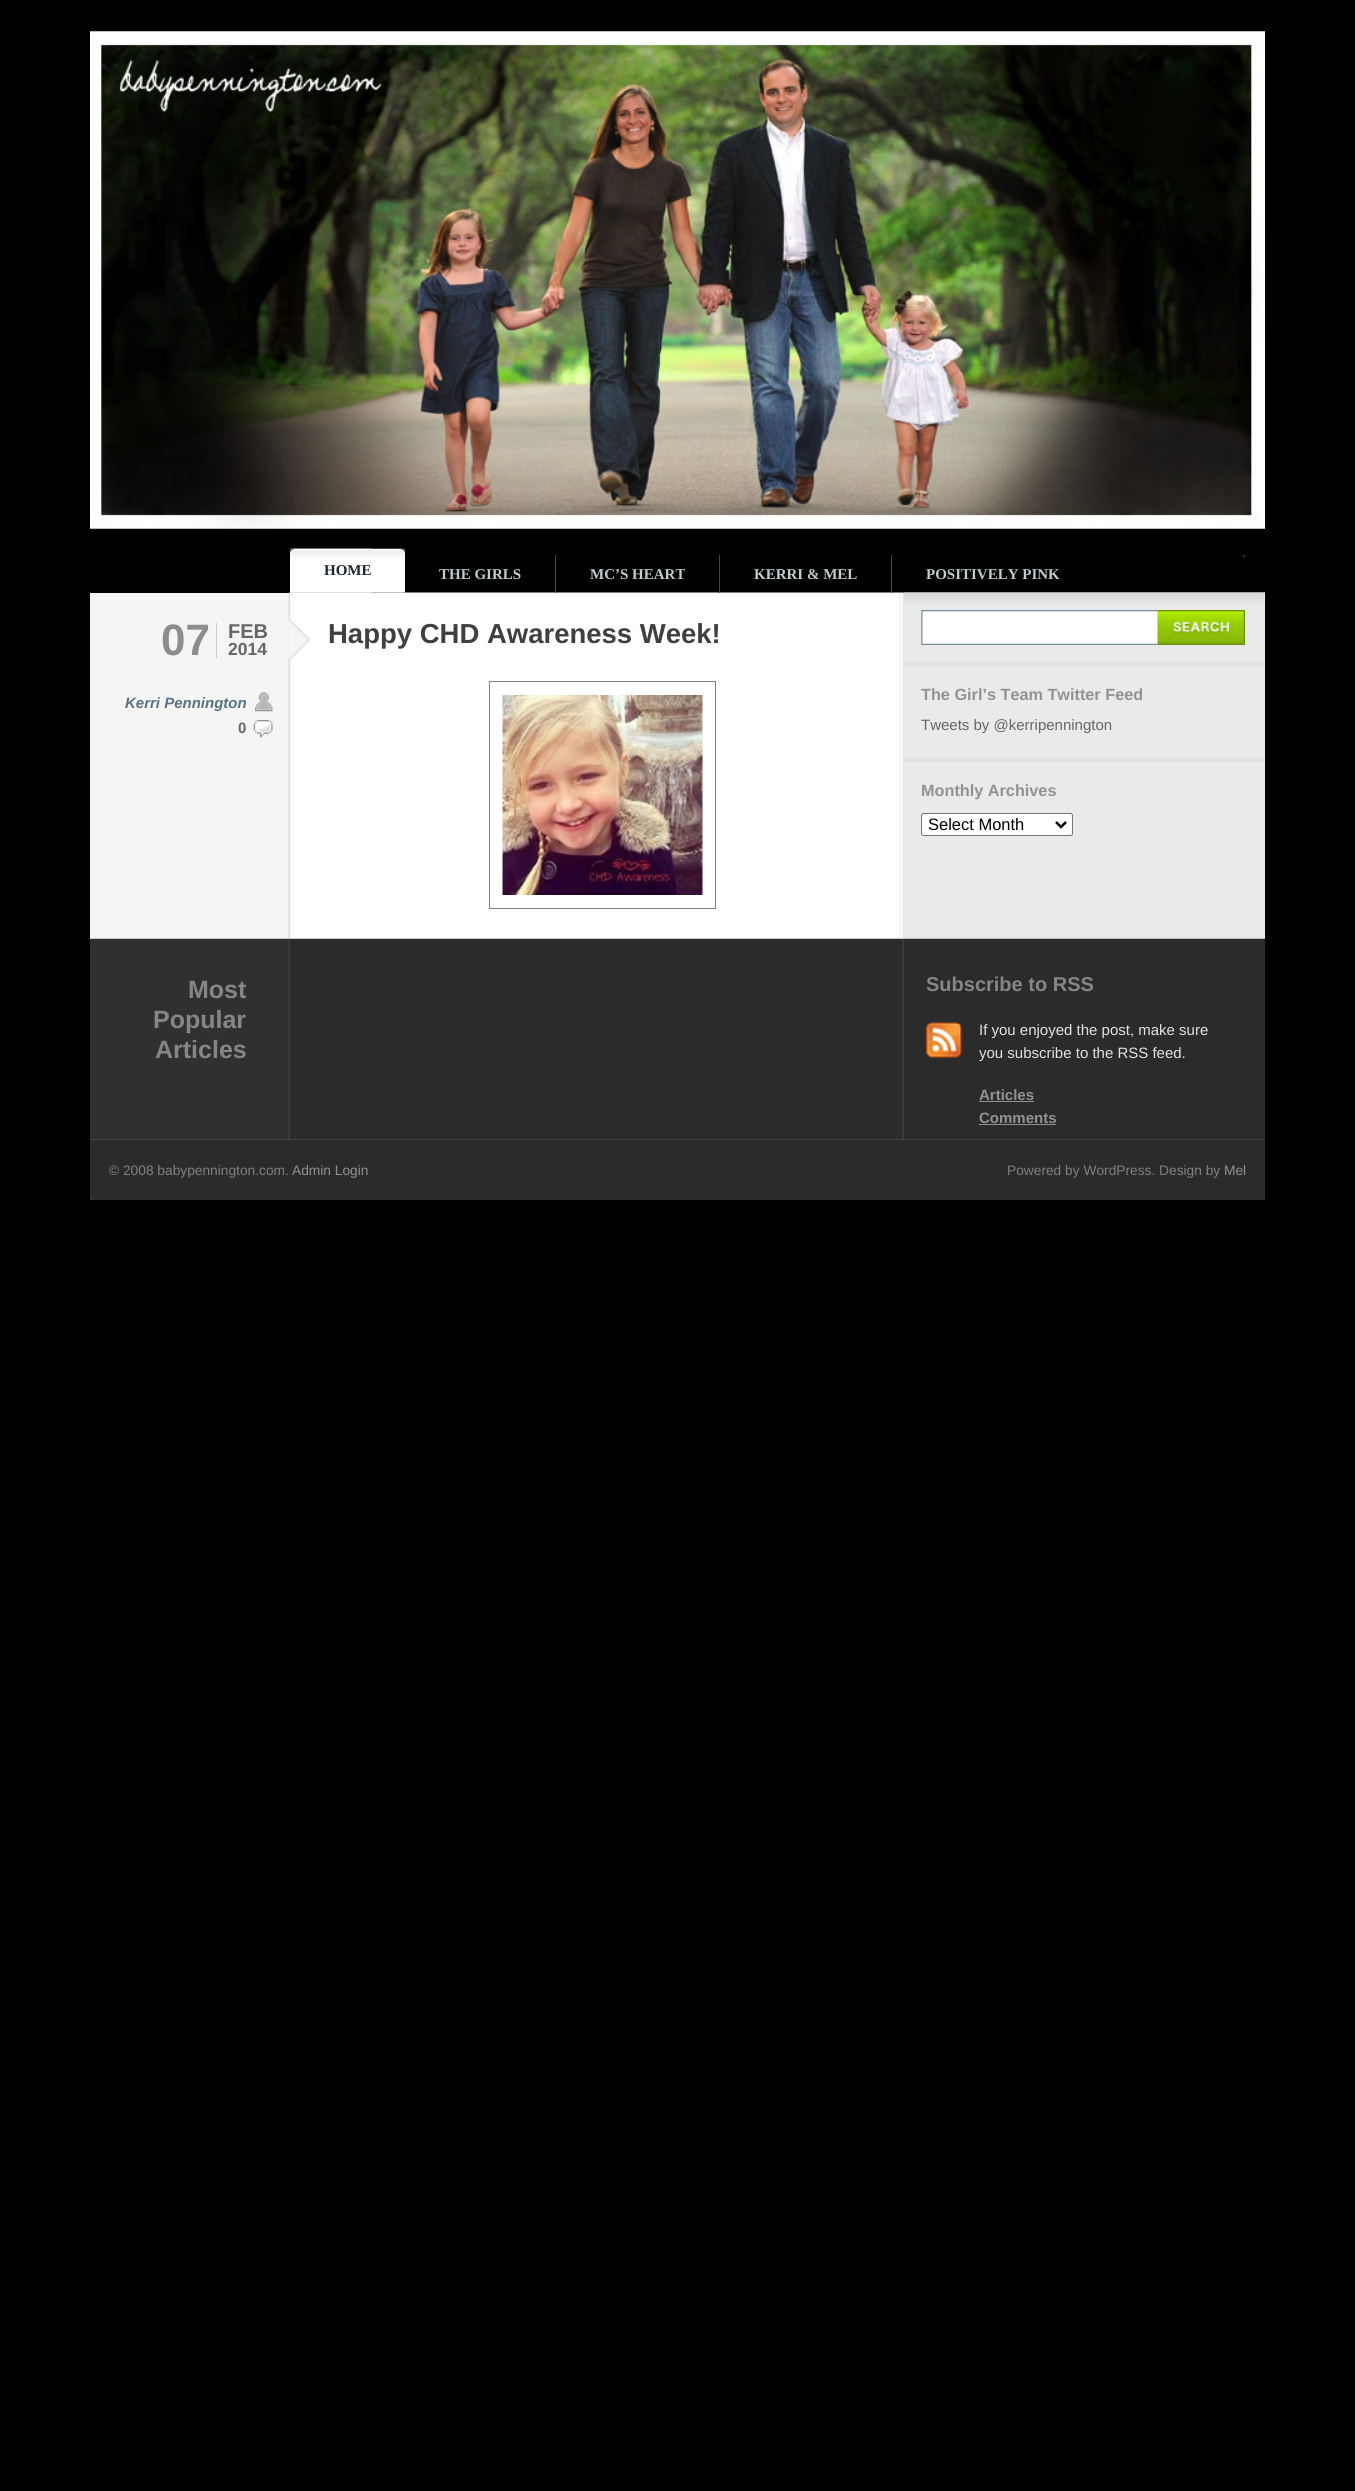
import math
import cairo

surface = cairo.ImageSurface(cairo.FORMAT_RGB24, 1355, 2491)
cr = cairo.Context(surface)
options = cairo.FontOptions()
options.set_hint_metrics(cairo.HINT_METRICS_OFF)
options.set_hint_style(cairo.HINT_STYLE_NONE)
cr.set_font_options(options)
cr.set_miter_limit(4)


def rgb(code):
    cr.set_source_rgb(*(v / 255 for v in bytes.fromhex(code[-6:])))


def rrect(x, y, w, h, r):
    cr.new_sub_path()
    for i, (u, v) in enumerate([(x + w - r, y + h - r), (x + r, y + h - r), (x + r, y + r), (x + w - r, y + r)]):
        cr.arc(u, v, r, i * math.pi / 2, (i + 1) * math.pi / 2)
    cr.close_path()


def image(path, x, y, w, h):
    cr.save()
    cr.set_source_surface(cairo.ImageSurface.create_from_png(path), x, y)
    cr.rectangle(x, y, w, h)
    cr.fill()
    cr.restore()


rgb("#000000")
cr.paint()
image("img/1.png", 90, 31, 1175, 498)
image("img/2.png", 405, 555, 840, 4)
rgb("#f5f5f5")
cr.rectangle(90, 593, 199, 346)
cr.fill()
image("img/5.png", 288, 592, 977, 347)
rgb("#3a4c2b")
cr.rectangle(404, 592, 1, 1)
cr.fill()
image("img/3.png", 290, 548, 115, 45)
image("img/4.png", 290, 548, 82, 45)
for x, y, w, h, color in [
    (555, 555, 1, 38, "#3a4c2b"),
    (719, 555, 1, 38, "#3a4c2b"),
    (891, 555, 1, 38, "#3a4c2b"),
]:
    rgb(color)
    cr.rectangle(x, y, w, h)
    cr.fill()
image("img/6.png", 288, 619, 22, 42)
rgb("#cbcbcb")
cr.rectangle(216, 623, 1, 35)
cr.fill()
image("img/7.png", 255, 692, 18, 20)
image("img/8.png", 253, 720, 20, 18)
cr.rectangle(489.5, 681.5, 226, 227)
rgb("#808080")
cr.set_line_width(1)
cr.stroke()
image("img/9.png", 502, 695, 201, 200)
image("img/10.png", 903, 592, 362, 12)
image("img/11.png", 921, 610, 237, 35)
image("img/12.png", 1157, 610, 88, 35)
rgb("#e3e3e2")
cr.rectangle(904, 661, 361, 5)
cr.fill()
image("img/13.png", 904, 757, 361, 7)
rgb("#ffffff")
rrect(921.5, 813.5, 151, 22, 2)
cr.fill_preserve()
rgb("#767676")
cr.stroke()
cr.new_path()
cr.move_to(1056, 822)
cr.line_to(1061, 827)
cr.line_to(1066, 822)
rgb("#000000")
cr.set_line_width(2.5)
cr.stroke()
image("img/14.png", 90, 938, 1175, 201)
image("img/15.png", 926, 1022, 36, 36)
for x, y, w, h, color in [
    (979, 1101, 55, 1, "#90938e"),
    (979, 1124, 77, 1, "#90938e"),
    (90, 1140, 1175, 57, "#2b2b2b"),
]:
    rgb(color)
    cr.rectangle(x, y, w, h)
    cr.fill()
image("img/16.png", 90, 1197, 1175, 3)
rgb("#424242")
cr.rectangle(90, 1139, 1175, 1)
cr.fill()
cr.select_font_face("Liberation Serif", cairo.FONT_SLANT_NORMAL, cairo.FONT_WEIGHT_BOLD)
cr.set_font_size(15)
rgb("#1a272e")
cr.move_to(324, 575)
cr.show_text("HOME")
rgb("#c0cdcf")
for x, y, s in [
    (439, 579, "THE GIRLS"),
    (590, 579, "MC’S HEART"),
    (754, 579, "KERRI & MEL"),
    (926, 579, "POSITIVELY PINK"),
]:
    cr.move_to(x, y)
    cr.show_text(s)
cr.select_font_face("Liberation Sans", cairo.FONT_SLANT_NORMAL, cairo.FONT_WEIGHT_BOLD)
cr.set_font_size(44)
rgb("#8d8d8d")
cr.move_to(161, 655)
cr.show_text("07")
cr.set_font_size(20)
rgb("#666666")
cr.move_to(228, 638)
cr.show_text("FEB")
cr.set_font_size(17.5)
cr.move_to(228, 655)
cr.show_text("2014")
cr.select_font_face("Liberation Sans", cairo.FONT_SLANT_ITALIC, cairo.FONT_WEIGHT_BOLD)
cr.set_font_size(15)
rgb("#587384")
cr.move_to(125, 708)
cr.show_text("Kerri Pennington")
cr.select_font_face("Liberation Sans", cairo.FONT_SLANT_NORMAL, cairo.FONT_WEIGHT_BOLD)
rgb("#666666")
cr.move_to(238, 733)
cr.show_text("0")
cr.set_font_size(27.5)
rgb("#404040")
cr.move_to(328, 643)
cr.show_text("Happy CHD Awareness Week!")
cr.set_font_size(16.25)
rgb("#91938f")
cr.move_to(921, 700)
cr.show_text("The Girl’s Team Twitter Feed")
cr.select_font_face("Liberation Sans")
cr.set_font_size(15)
rgb("#666666")
cr.move_to(921, 730)
cr.show_text("Tweets by @kerripennington")
cr.select_font_face("Liberation Sans", cairo.FONT_SLANT_NORMAL, cairo.FONT_WEIGHT_BOLD)
cr.set_font_size(16.25)
rgb("#91938f")
cr.move_to(921, 796)
cr.show_text("Monthly Archives")
cr.select_font_face("Liberation Sans")
cr.set_font_size(16.5)
rgb("#000000")
cr.move_to(928, 830)
cr.show_text("Select Month")
cr.select_font_face("Liberation Sans", cairo.FONT_SLANT_NORMAL, cairo.FONT_WEIGHT_BOLD)
cr.set_font_size(25)
rgb("#848783")
for x, y, s in [
    (188, 998, "Most"),
    (153, 1028, "Popular"),
    (155, 1058, "Articles"),
]:
    cr.move_to(x, y)
    cr.show_text(s)
cr.set_font_size(20)
cr.move_to(926, 991)
cr.show_text("Subscribe to RSS")
cr.select_font_face("Liberation Sans")
cr.set_font_size(15)
rgb("#e1e2e3")
cr.move_to(979, 1035)
cr.show_text("If you enjoyed the post, make sure")
cr.move_to(979, 1058)
cr.show_text("you subscribe to the RSS feed.")
cr.select_font_face("Liberation Sans", cairo.FONT_SLANT_NORMAL, cairo.FONT_WEIGHT_BOLD)
rgb("#91938f")
cr.move_to(979, 1100)
cr.show_text("Articles")
cr.move_to(979, 1123)
cr.show_text("Comments")
cr.select_font_face("Liberation Sans")
cr.set_font_size(13.75)
rgb("#80807f")
cr.move_to(109, 1175)
cr.show_text("© 2008 babypennington.com.")
rgb("#91938f")
cr.move_to(292, 1175)
cr.show_text("Admin Login")
rgb("#80807f")
cr.move_to(1007, 1175)
cr.show_text("Powered by WordPress. Design by")
rgb("#91938f")
cr.move_to(1224, 1175)
cr.show_text("Mel")
surface.write_to_png("page.png")
